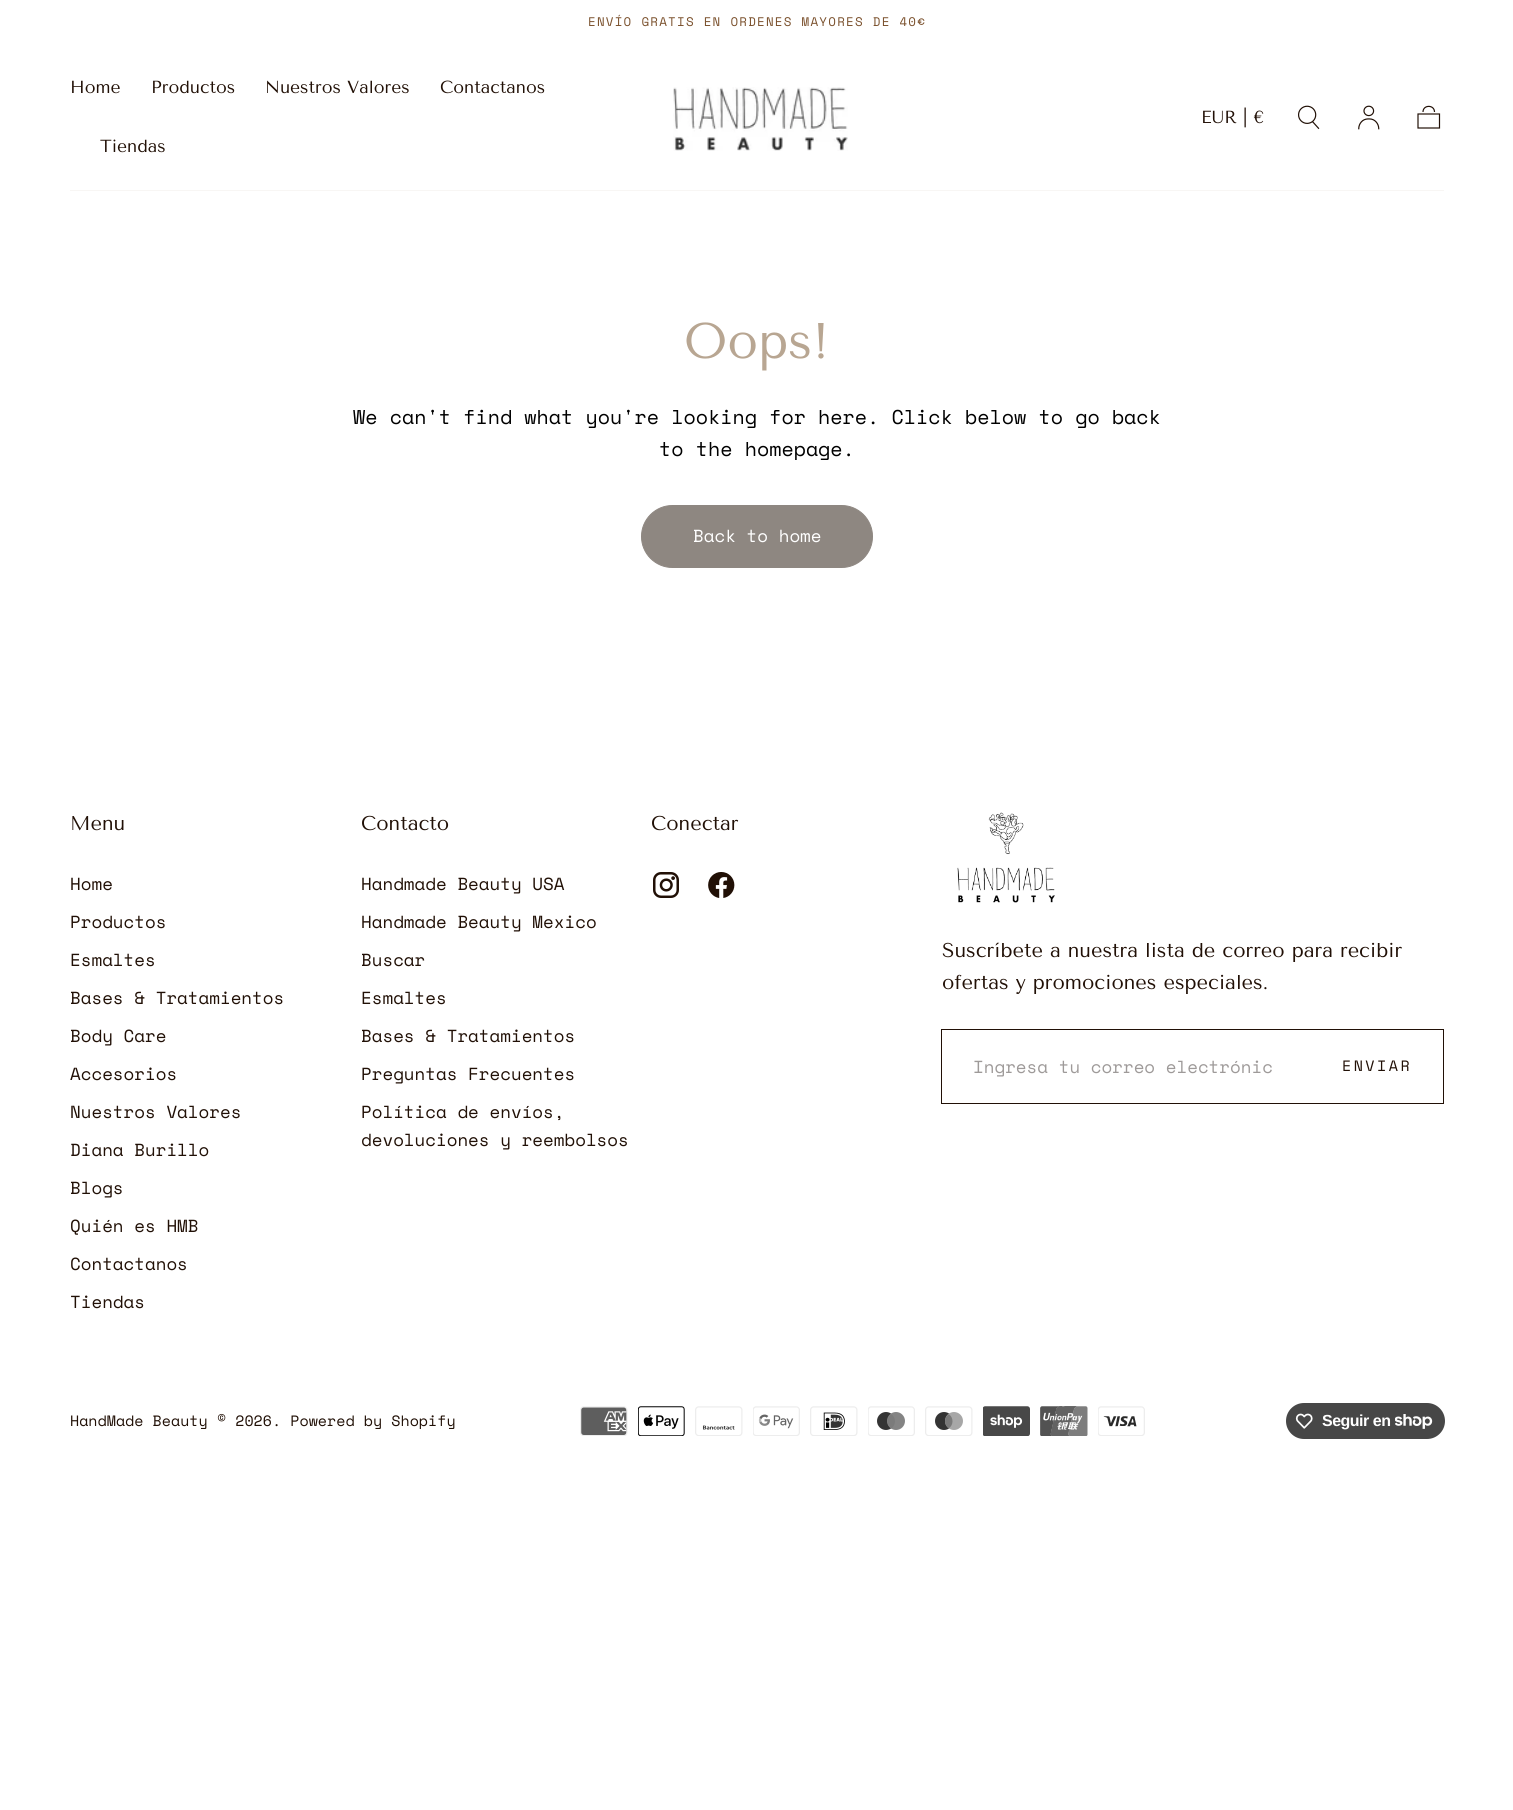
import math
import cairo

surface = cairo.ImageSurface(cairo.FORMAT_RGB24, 1513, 1810)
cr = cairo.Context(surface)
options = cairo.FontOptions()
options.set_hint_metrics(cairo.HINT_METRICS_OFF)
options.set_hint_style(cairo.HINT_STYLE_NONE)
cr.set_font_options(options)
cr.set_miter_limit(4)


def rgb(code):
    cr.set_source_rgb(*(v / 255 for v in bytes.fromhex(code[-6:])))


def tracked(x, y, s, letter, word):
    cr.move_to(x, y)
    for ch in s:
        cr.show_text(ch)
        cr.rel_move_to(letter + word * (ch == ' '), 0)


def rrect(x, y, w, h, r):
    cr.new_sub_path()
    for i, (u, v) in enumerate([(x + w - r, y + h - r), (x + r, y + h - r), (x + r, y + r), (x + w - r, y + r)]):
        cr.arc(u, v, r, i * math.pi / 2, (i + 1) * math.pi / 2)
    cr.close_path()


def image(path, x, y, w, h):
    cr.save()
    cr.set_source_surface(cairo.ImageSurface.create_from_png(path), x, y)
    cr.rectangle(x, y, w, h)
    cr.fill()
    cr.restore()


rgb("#ffffff")
cr.paint()
image("img/1.png", 673, 87, 175, 64)
image("img/2.png", 1298, 105, 22, 25)
image("img/3.png", 1358, 105, 22, 25)
cr.new_path()
cr.move_to(1439.5, 128)
cr.line_to(1418, 128)
cr.line_to(1418, 114)
cr.line_to(1439.5, 114)
cr.close_path()
cr.move_to(1434.5, 112)
cr.curve_to(1434.5, 104.5, 1423, 104.5, 1423, 112)
rgb("#211006")
cr.set_line_width(1.2)
cr.stroke()
rgb("#f8f6f4")
cr.rectangle(70, 190, 1374, 1)
cr.fill()
rgb("#8e8781")
rrect(641.5, 505.5, 231, 62, 31)
cr.fill_preserve()
cr.set_line_width(1)
cr.stroke()
image("img/4.png", 653, 872, 26, 26)
image("img/5.png", 708, 872, 27, 26)
image("img/6.png", 957, 812, 98, 91)
cr.rectangle(941.5, 1029.5, 502, 74)
rgb("#211006")
cr.stroke()
image("img/7.png", 580, 1406, 48, 30)
image("img/8.png", 638, 1406, 47, 30)
image("img/9.png", 695, 1406, 48, 30)
image("img/10.png", 753, 1406, 47, 30)
image("img/11.png", 810, 1406, 48, 30)
image("img/12.png", 868, 1406, 47, 30)
image("img/13.png", 925, 1406, 48, 30)
image("img/14.png", 983, 1406, 47, 30)
image("img/15.png", 1040, 1406, 48, 30)
image("img/16.png", 1098, 1406, 47, 30)
rgb("#474747")
rrect(1286, 1403, 159, 36, 18)
cr.fill()
image("img/17.png", 1295, 1413, 18, 16)
image("img/18.png", 1395, 1414, 38, 15)
cr.select_font_face("Space Mono")
cr.set_font_size(12.5)
rgb("#7a502c")
tracked(588, 26, "ENVÍO GRATIS EN ORDENES MAYORES DE 40€", 1.25, 0)
cr.select_font_face("Tenor Sans")
cr.set_font_size(17.5)
rgb("#211006")
for x, y, s in [
    (70, 93, "Home"),
    (151, 93, "Productos"),
    (265, 93, "Nuestros Valores"),
    (440, 93, "Contactanos"),
    (100, 152, "Tiendas"),
    (1201, 123, "EUR | €"),
]:
    cr.move_to(x, y)
    cr.show_text(s)
cr.set_font_size(50)
rgb("#b8a692")
cr.move_to(684, 358)
cr.show_text("Oops!")
cr.select_font_face("Space Mono")
cr.set_font_size(20)
rgb("#000000")
cr.move_to(353, 424)
cr.show_text("We can't find what you're looking for here. Click below to go back")
cr.move_to(659, 456)
cr.show_text("to the homepage.")
cr.set_font_size(17.5)
rgb("#ffffff")
cr.move_to(693, 542)
cr.show_text("Back to home")
cr.select_font_face("Tenor Sans")
cr.set_font_size(20)
rgb("#211006")
cr.move_to(70, 830)
cr.show_text("Menu")
cr.select_font_face("Space Mono")
cr.set_font_size(17.5)
for x, y, s in [
    (70, 890, "Home"),
    (70, 928, "Productos"),
    (70, 966, "Esmaltes"),
    (70, 1004, "Bases & Tratamientos"),
    (70, 1042, "Body Care"),
    (70, 1080, "Accesorios"),
    (70, 1118, "Nuestros Valores"),
    (70, 1156, "Diana Burillo"),
    (70, 1194, "Blogs"),
    (70, 1232, "Quién es HMB"),
    (70, 1270, "Contactanos"),
    (70, 1308, "Tiendas"),
]:
    cr.move_to(x, y)
    cr.show_text(s)
cr.select_font_face("Tenor Sans")
cr.set_font_size(20)
cr.move_to(361, 830)
cr.show_text("Contacto")
cr.select_font_face("Space Mono")
cr.set_font_size(17.5)
for x, y, s in [
    (361, 890, "Handmade Beauty USA"),
    (361, 928, "Handmade Beauty Mexico"),
    (361, 966, "Buscar"),
    (361, 1004, "Esmaltes"),
    (361, 1042, "Bases & Tratamientos"),
    (361, 1080, "Preguntas Frecuentes"),
    (361, 1118, "Política de envíos,"),
    (361, 1146, "devoluciones y reembolsos"),
]:
    cr.move_to(x, y)
    cr.show_text(s)
cr.select_font_face("Tenor Sans")
cr.set_font_size(20)
for x, y, s in [
    (651, 830, "Conectar"),
    (942, 957, "Suscríbete a nuestra lista de correo para recibir"),
    (942, 989, "ofertas y promociones especiales."),
]:
    cr.move_to(x, y)
    cr.show_text(s)
cr.select_font_face("Space Mono")
cr.set_font_size(17.5)
rgb("#9e9a99")
cr.move_to(973, 1073)
cr.show_text("Ingresa tu correo electrónic")
cr.set_font_size(15)
rgb("#211006")
tracked(1342, 1071, "ENVIAR", 2.5, 0)
cr.move_to(70, 1426)
cr.show_text("HandMade Beauty © 2026. Powered by Shopify")
cr.select_font_face("Liberation Sans", cairo.FONT_SLANT_NORMAL, cairo.FONT_WEIGHT_BOLD)
cr.set_font_size(16)
rgb("#ffffff")
tracked(1322, 1426, "Seguir en", -0.5, 0)
surface.write_to_png("page.png")
